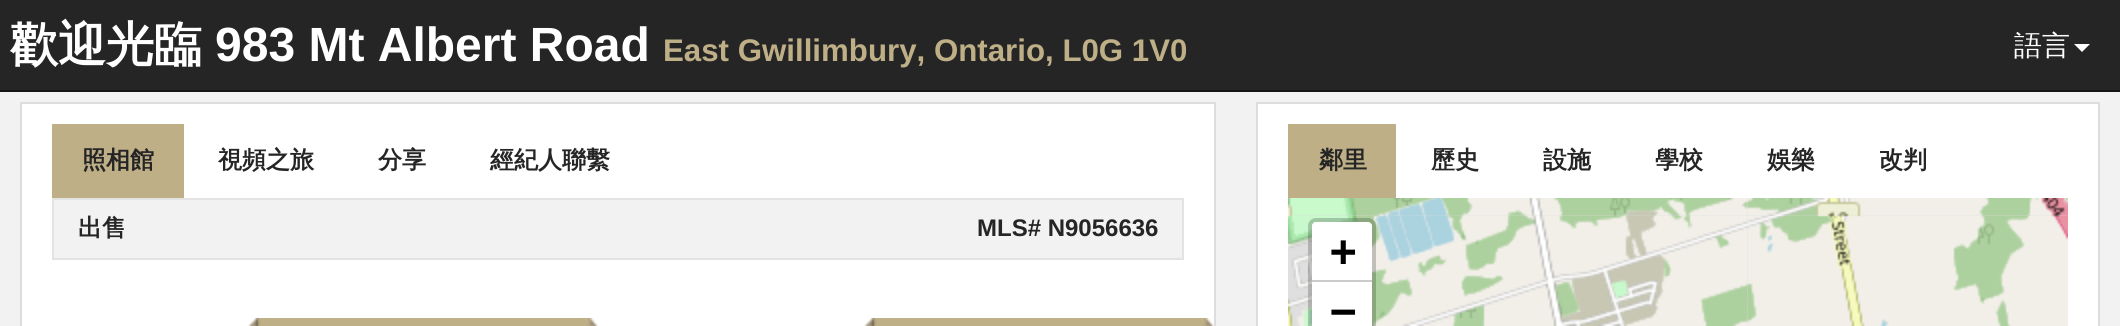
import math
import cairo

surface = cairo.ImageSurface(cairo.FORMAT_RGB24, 2120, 326)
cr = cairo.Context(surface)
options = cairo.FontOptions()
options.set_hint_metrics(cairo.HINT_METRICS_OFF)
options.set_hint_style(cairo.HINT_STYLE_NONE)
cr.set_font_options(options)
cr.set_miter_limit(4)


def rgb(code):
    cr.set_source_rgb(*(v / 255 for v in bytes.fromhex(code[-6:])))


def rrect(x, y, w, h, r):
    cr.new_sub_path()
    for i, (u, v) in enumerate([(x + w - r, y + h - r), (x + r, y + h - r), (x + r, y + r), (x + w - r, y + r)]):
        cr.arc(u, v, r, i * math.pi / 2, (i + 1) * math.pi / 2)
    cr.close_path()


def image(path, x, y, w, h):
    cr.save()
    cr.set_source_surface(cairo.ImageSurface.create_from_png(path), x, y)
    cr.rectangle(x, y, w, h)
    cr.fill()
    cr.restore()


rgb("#f2f2f2")
cr.paint()
rgb("#252526")
cr.rectangle(0, 0, 2120, 90)
cr.fill()
rgb("#151515")
cr.rectangle(0, 90, 2120, 2)
cr.fill()
rgb("#ffffff")
cr.new_path()
cr.move_to(2074, 44)
cr.line_to(2090, 44)
cr.line_to(2082, 52)
cr.close_path()
cr.fill()
cr.rectangle(21, 103, 1194, 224)
cr.fill_preserve()
rgb("#dddddd")
cr.stroke()
rgb("#beaf87")
cr.rectangle(52, 124, 132, 74)
cr.fill()
rgb("#f2f2f2")
cr.rectangle(53, 199, 1130, 60)
cr.fill_preserve()
rgb("#e3e3e3")
cr.stroke()
rgb("#ffffff")
cr.rectangle(1257, 103, 842, 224)
cr.fill_preserve()
rgb("#dddddd")
cr.stroke()
rgb("#beaf87")
cr.rectangle(1288, 124, 108, 74)
cr.fill()
rgb("#dddddd")
cr.rectangle(1288, 198, 780, 128)
cr.fill()
image("img/3.png", 1288, 216, 460, 110)
image("img/4.png", 1748, 216, 320, 110)
image("img/1.png", 1288, 198, 461, 19)
image("img/2.png", 1748, 198, 320, 19)
rrect(1310, 220, 64, 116, 6)
cr.set_source_rgba(0, 0, 0, 0.2)
cr.set_line_width(4)
cr.stroke()
rgb("#ffffff")
cr.new_path()
cr.move_to(1316, 222)
cr.line_to(1368, 222)
cr.curve_to(1370, 222, 1372, 224, 1372, 226)
cr.line_to(1372, 282)
cr.line_to(1312, 282)
cr.line_to(1312, 226)
cr.curve_to(1312, 224, 1314, 222, 1316, 222)
cr.close_path()
cr.fill()
rgb("#cccccc")
cr.rectangle(1312, 280, 60, 2)
cr.fill()
rgb("#ffffff")
cr.rectangle(1312, 282, 60, 44)
cr.fill()
image("img/5.png", 248, 318, 350, 8)
image("img/5.png", 864, 318, 350, 8)
cr.select_font_face("WenQuanYi Zen Hei", cairo.FONT_SLANT_NORMAL, cairo.FONT_WEIGHT_BOLD)
cr.set_font_size(48)
cr.move_to(10, 61)
cr.show_text("歡迎光臨")
cr.select_font_face("Liberation Sans", cairo.FONT_SLANT_NORMAL, cairo.FONT_WEIGHT_BOLD)
cr.move_to(215, 61)
cr.show_text("983 Mt Albert Road")
cr.set_font_size(31.25)
rgb("#beaf87")
cr.move_to(663, 61)
cr.show_text("East Gwillimbury, Ontario, L0G 1V0")
cr.select_font_face("WenQuanYi Zen Hei Medium")
cr.set_font_size(28)
rgb("#ffffff")
cr.move_to(2014, 55)
cr.show_text("語言")
cr.select_font_face("WenQuanYi Zen Hei", cairo.FONT_SLANT_NORMAL, cairo.FONT_WEIGHT_BOLD)
cr.set_font_size(24)
rgb("#252526")
for x, y, s in [
    (82, 168, "照相館"),
    (218, 168, "視頻之旅"),
    (378, 168, "分享"),
    (490, 168, "經紀人聯繫"),
    (78, 236, "出售"),
]:
    cr.move_to(x, y)
    cr.show_text(s)
cr.select_font_face("Liberation Sans", cairo.FONT_SLANT_NORMAL, cairo.FONT_WEIGHT_BOLD)
cr.move_to(977, 236)
cr.show_text("MLS# N9056636")
cr.select_font_face("WenQuanYi Zen Hei", cairo.FONT_SLANT_NORMAL, cairo.FONT_WEIGHT_BOLD)
for x, y, s in [
    (1319, 168, "鄰里"),
    (1431, 168, "歷史"),
    (1543, 168, "設施"),
    (1655, 168, "學校"),
    (1767, 168, "娛樂"),
    (1879, 168, "改判"),
]:
    cr.move_to(x, y)
    cr.show_text(s)
cr.select_font_face("DejaVu Sans Mono", cairo.FONT_SLANT_NORMAL, cairo.FONT_WEIGHT_BOLD)
cr.set_font_size(44)
rgb("#000000")
cr.move_to(1330, 266)
cr.show_text("+")
cr.move_to(1330, 326)
cr.show_text("−")
surface.write_to_png("page.png")
